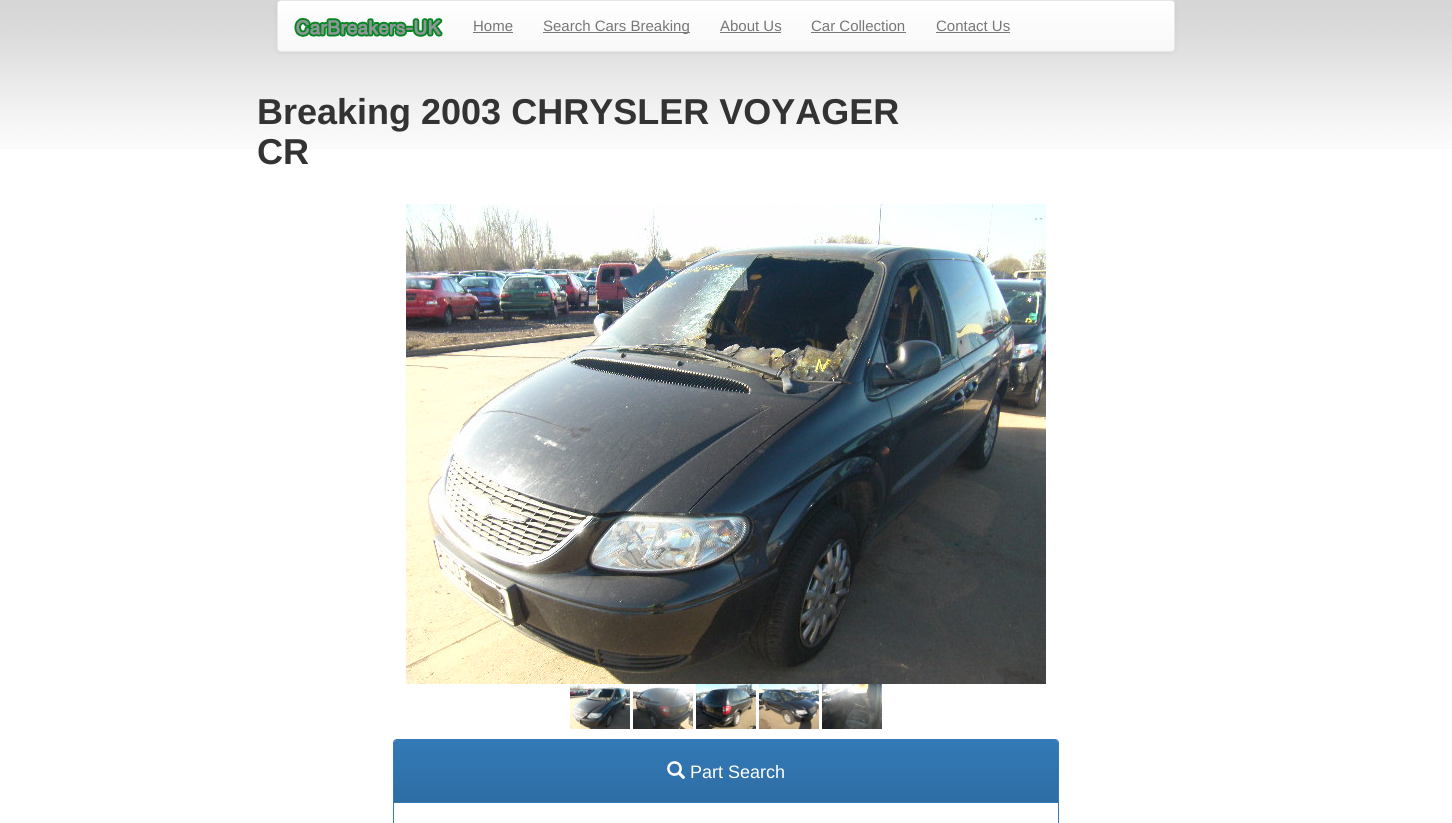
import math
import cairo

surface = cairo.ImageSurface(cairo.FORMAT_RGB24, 1452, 823)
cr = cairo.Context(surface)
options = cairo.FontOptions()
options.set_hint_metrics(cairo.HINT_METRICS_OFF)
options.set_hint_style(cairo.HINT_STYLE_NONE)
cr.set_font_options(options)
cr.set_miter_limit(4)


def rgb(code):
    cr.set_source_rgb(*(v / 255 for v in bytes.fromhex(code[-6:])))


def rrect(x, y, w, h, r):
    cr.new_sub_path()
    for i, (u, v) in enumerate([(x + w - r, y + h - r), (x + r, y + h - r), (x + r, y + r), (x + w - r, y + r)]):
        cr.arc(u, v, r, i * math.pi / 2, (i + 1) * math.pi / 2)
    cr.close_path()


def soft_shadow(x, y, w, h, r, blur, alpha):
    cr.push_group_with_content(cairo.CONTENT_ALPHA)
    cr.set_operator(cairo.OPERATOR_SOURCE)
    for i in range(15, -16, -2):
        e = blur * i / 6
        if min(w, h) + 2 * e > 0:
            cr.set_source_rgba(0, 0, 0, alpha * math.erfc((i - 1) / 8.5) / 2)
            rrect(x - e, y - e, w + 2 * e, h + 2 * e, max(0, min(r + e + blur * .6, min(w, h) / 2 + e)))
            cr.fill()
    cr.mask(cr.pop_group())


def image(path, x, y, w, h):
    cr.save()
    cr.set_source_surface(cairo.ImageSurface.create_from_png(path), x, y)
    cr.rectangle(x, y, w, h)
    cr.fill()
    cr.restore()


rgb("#ffffff")
cr.paint()
image("img/1.png", 0, 0, 1452, 149)
rgb("#000000")
soft_shadow(277, 1, 898, 52, 4, 2.5, 0.07)
cr.save()
rrect(277, 0, 898, 52, 4)
cr.clip()
gradient = cairo.LinearGradient(726, 1, 726, 51)
gradient.add_color_stop_rgba(0, 1, 1, 1, 1)
gradient.add_color_stop_rgba(1, 0.973, 0.973, 0.973, 1)
cr.set_source(gradient)
cr.rectangle(277, 1, 898, 50)
cr.fill()
cr.restore()
rrect(277.5, 0.5, 897, 51, 3.5)
rgb("#e7e7e7")
cr.set_line_width(1)
cr.stroke()
image("img/2.png", 294, 18, 149, 19)
for x, y, w, h, color in [
    (473, 32, 40, 1, "#777777"),
    (543, 32, 147, 1, "#777777"),
    (720, 32, 61, 1, "#777777"),
    (811, 32, 95, 1, "#777777"),
    (936, 32, 74, 1, "#777777"),
]:
    rgb(color)
    cr.rectangle(x, y, w, h)
    cr.fill()
image("img/3.png", 406, 204, 640, 480)
image("img/4.png", 570, 684, 60, 45)
image("img/5.png", 633, 684, 60, 45)
image("img/6.png", 696, 684, 60, 45)
image("img/7.png", 759, 684, 60, 45)
image("img/8.png", 822, 684, 60, 45)
rrect(393.5, 739.5, 665, 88, 3.5)
rgb("#337ab7")
cr.stroke()
cr.new_path()
cr.move_to(397, 740)
cr.line_to(1055, 740)
cr.curve_to(1056.5, 740, 1058, 741.5, 1058, 743)
cr.line_to(1058, 803)
cr.line_to(394, 803)
cr.line_to(394, 743)
cr.curve_to(394, 741.5, 395.5, 740, 397, 740)
cr.close_path()
cr.fill()
gradient = cairo.LinearGradient(726, 740, 726, 802)
gradient.add_color_stop_rgba(0, 0.2, 0.478, 0.718, 1)
gradient.add_color_stop_rgba(1, 0.18, 0.427, 0.643, 1)
cr.set_source(gradient)
cr.new_path()
cr.move_to(397, 740)
cr.line_to(1055, 740)
cr.curve_to(1056.5, 740, 1058, 741.5, 1058, 743)
cr.line_to(1058, 802)
cr.line_to(394, 802)
cr.line_to(394, 743)
cr.curve_to(394, 741.5, 395.5, 740, 397, 740)
cr.close_path()
cr.fill()
image("img/9.png", 667, 761, 19, 19)
cr.select_font_face("Liberation Sans")
cr.set_font_size(15)
rgb("#777777")
for x, y, s in [
    (473, 31, "Home"),
    (543, 31, "Search Cars Breaking"),
    (720, 31, "About Us"),
    (811, 31, "Car Collection"),
    (936, 31, "Contact Us"),
]:
    cr.move_to(x, y)
    cr.show_text(s)
cr.select_font_face("Liberation Sans", cairo.FONT_SLANT_NORMAL, cairo.FONT_WEIGHT_BOLD)
cr.set_font_size(36)
rgb("#333333")
cr.move_to(257, 124)
cr.show_text("Breaking 2003 CHRYSLER VOYAGER")
cr.move_to(257, 164)
cr.show_text("CR")
cr.select_font_face("Liberation Sans")
cr.set_font_size(18)
rgb("#ffffff")
cr.move_to(690, 778)
cr.show_text("Part Search")
surface.write_to_png("page.png")
